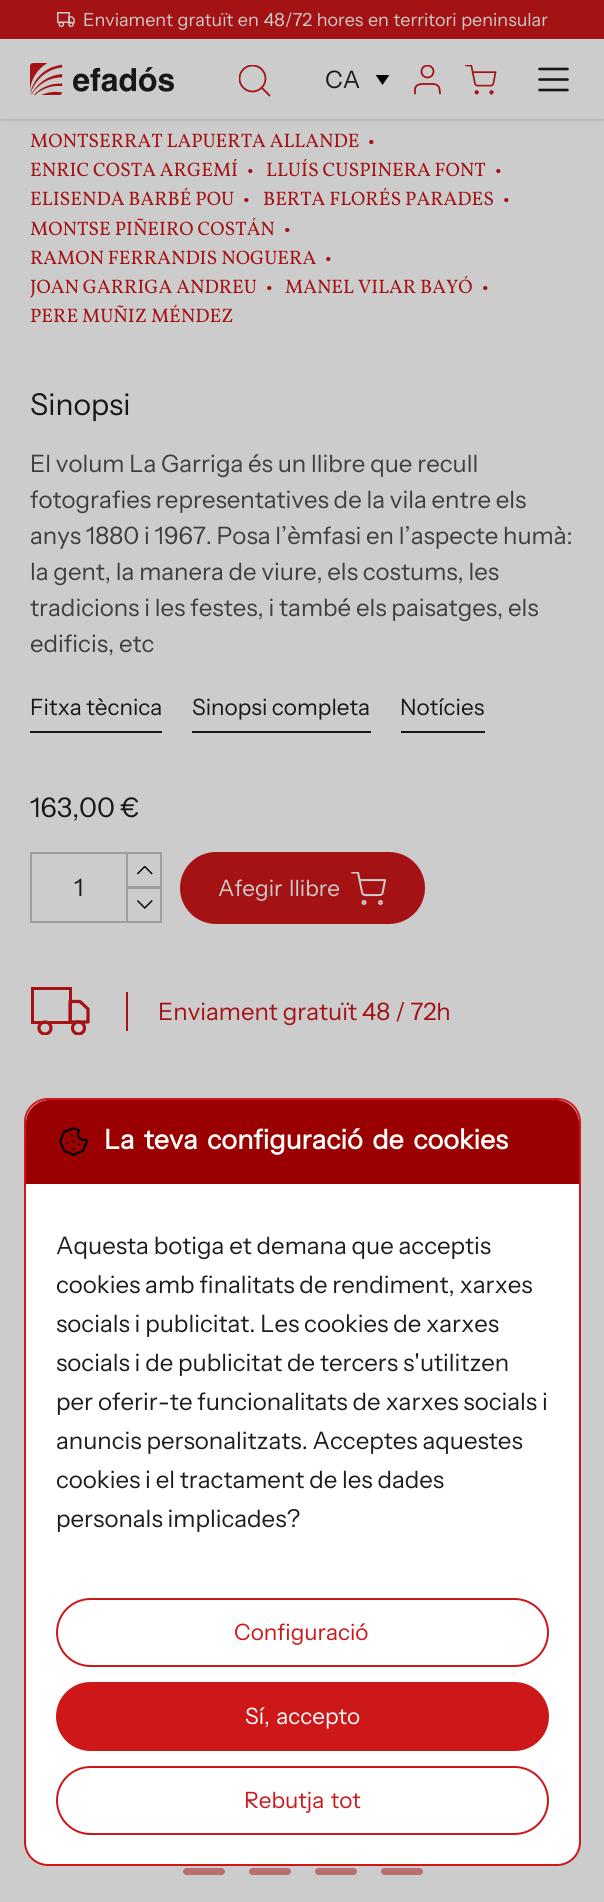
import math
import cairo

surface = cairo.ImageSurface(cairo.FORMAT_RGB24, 604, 1902)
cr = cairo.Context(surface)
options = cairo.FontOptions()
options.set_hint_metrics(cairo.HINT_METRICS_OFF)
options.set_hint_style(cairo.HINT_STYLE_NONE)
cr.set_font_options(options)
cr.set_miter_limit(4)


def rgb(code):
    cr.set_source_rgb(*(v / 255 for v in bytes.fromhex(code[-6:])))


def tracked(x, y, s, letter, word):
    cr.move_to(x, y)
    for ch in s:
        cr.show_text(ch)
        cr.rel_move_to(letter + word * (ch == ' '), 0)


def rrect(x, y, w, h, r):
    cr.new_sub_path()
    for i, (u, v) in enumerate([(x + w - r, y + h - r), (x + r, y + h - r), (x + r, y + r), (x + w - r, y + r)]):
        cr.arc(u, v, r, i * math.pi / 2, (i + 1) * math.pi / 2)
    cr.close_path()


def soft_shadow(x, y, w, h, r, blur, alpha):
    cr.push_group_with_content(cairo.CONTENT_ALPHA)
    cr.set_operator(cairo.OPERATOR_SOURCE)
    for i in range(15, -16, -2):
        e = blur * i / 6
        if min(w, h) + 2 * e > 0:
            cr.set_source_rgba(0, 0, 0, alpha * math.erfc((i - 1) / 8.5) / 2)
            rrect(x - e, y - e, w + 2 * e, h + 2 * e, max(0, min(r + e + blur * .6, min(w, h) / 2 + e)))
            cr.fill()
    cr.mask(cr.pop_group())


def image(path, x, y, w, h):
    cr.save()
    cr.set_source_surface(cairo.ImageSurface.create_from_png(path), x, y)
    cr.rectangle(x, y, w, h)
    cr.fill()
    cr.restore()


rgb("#cccccc")
cr.paint()
rgb("#000000")
soft_shadow(2, 3, 601, 116, 0, 1.5, 0.1)
soft_shadow(0, 2, 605, 118, 0, 2, 0.1)
rgb("#cccccc")
cr.rectangle(0, 39, 604, 80)
cr.fill()
rgb("#a41214")
cr.rectangle(0, 0, 604, 39)
cr.fill()
image("img/1.png", 57, 12, 18, 15)
image("img/2.png", 30, 63, 144, 32)
cr.new_path()
cr.move_to(269.5, 95.5)
cr.line_to(261.5, 87.5)
cr.set_line_width(1.8)
cr.set_line_cap(cairo.LINE_CAP_ROUND)
cr.stroke()
cr.save()
cr.rectangle(239, 65, 33, 31)
cr.clip()
cr.arc(252.5, 78.5, 13, 0, 2 * math.pi)
cr.set_line_cap(cairo.LINE_CAP_BUTT)
cr.stroke()
cr.restore()
cr.save()
cr.rectangle(375, 75, 15, 11)
cr.clip()
rgb("#000000")
cr.new_path()
cr.move_to(382.5, 85)
cr.line_to(375, 74)
cr.line_to(390, 74)
cr.close_path()
cr.fill()
cr.restore()
cr.new_path()
cr.move_to(440, 93.5)
cr.line_to(439.5, 89)
cr.curve_to(438.5, 83, 432, 84, 427.5, 84)
cr.curve_to(423, 84, 416, 83, 415, 89)
cr.line_to(415, 93.5)
cr.set_line_join(cairo.LINE_JOIN_ROUND)
cr.stroke()
cr.save()
cr.rectangle(414, 65, 27, 30)
cr.clip()
cr.arc(427.5, 71.5, 6, 0, 2 * math.pi)
cr.set_line_cap(cairo.LINE_CAP_BUTT)
cr.set_line_join(cairo.LINE_JOIN_MITER)
cr.stroke()
cr.restore()
image("img/3.png", 465, 65, 32, 30)
cr.new_path()
cr.move_to(539.5, 69)
cr.line_to(567.5, 69)
cr.move_to(539.5, 79.5)
cr.line_to(567.5, 79.5)
cr.move_to(539.5, 90)
cr.line_to(567.5, 90)
rgb("#171716")
cr.set_line_width(2.6)
cr.stroke()
for x, y, w, h, color in [
    (30, 731, 132, 2, "#171716"),
    (192, 731, 179, 2, "#171716"),
    (401, 731, 84, 2, "#171716"),
    (30, 852, 96, 2, "#9d9d9d"),
    (30, 921, 96, 2, "#9d9d9d"),
    (30, 852, 2, 71, "#9d9d9d"),
]:
    rgb(color)
    cr.rectangle(x, y, w, h)
    cr.fill()
cr.rectangle(127, 853, 34, 34)
cr.set_line_width(2)
cr.set_line_cap(cairo.LINE_CAP_BUTT)
cr.set_line_join(cairo.LINE_JOIN_MITER)
cr.stroke()
image("img/4.png", 137, 866, 16, 9)
cr.rectangle(127, 888, 34, 34)
cr.stroke()
image("img/5.png", 137, 900, 16, 9)
rgb("#a41214")
rrect(181, 853, 243, 70, 35)
cr.fill_preserve()
cr.stroke()
image("img/6.png", 351, 872, 35, 33)
cr.rectangle(32.5, 988.5, 38, 34)
cr.set_line_width(3)
cr.stroke()
cr.new_path()
cr.move_to(70, 1001.5)
cr.line_to(80, 1001.5)
cr.line_to(88, 1009)
cr.line_to(88, 1022)
cr.line_to(70, 1022)
cr.close_path()
cr.set_line_width(3.2)
cr.set_line_cap(cairo.LINE_CAP_ROUND)
cr.set_line_join(cairo.LINE_JOIN_ROUND)
cr.stroke()
cr.save()
cr.rectangle(30, 987, 60, 48)
cr.clip()
cr.arc(45, 1028, 6, 0, 2 * math.pi)
cr.set_line_cap(cairo.LINE_CAP_BUTT)
cr.set_line_join(cairo.LINE_JOIN_MITER)
cr.stroke()
cr.arc(78.5, 1028, 6, 0, 2 * math.pi)
cr.stroke()
cr.restore()
cr.rectangle(126, 992, 2, 39)
cr.fill()
rgb("#b86f70")
rrect(183, 1868, 42, 7, 3.5)
cr.fill()
rrect(249, 1868, 42, 7, 3.5)
cr.fill()
rrect(315, 1868, 42, 7, 3.5)
cr.fill()
rrect(381, 1868, 42, 7, 3.5)
cr.fill()
rgb("#ffffff")
rrect(25, 1099, 555, 766, 23)
cr.fill_preserve()
rgb("#cd1719")
cr.set_line_width(2)
cr.set_line_cap(cairo.LINE_CAP_BUTT)
cr.set_line_join(cairo.LINE_JOIN_MITER)
cr.stroke()
rgb("#9a0000")
cr.new_path()
cr.move_to(49, 1100)
cr.line_to(556, 1100)
cr.curve_to(568.5, 1100, 579, 1110.5, 579, 1123)
cr.line_to(579, 1184)
cr.line_to(26, 1184)
cr.line_to(26, 1123)
cr.curve_to(26, 1110.5, 36.5, 1100, 49, 1100)
cr.close_path()
cr.fill()
image("img/7.png", 59, 1127, 29, 29)
rrect(57, 1599, 491, 67, 33.5)
rgb("#cd1719")
cr.stroke()
rrect(57, 1683, 491, 67, 33.5)
cr.fill_preserve()
cr.stroke()
rrect(57, 1767, 491, 67, 33.5)
cr.stroke()
cr.select_font_face("Instrument Sans")
cr.set_font_size(18)
rgb("#cccccc")
tracked(83, 26, "Enviament gratuït en 48/72 hores en territori peninsular", 0, 1)
cr.set_font_size(24)
rgb("#171716")
cr.move_to(325, 88)
cr.show_text("CA")
cr.select_font_face("Vollkorn")
cr.set_font_size(19.5)
rgb("#a41214")
for x, y, s in [
    (30, 147, "MONTSERRAT LAPUERTA ALLANDE"),
    (368, 147, "•"),
    (30, 176, "ENRIC COSTA ARGEMÍ"),
    (247, 176, "•"),
    (266, 176, "LLUÍS CUSPINERA FONT"),
    (495, 176, "•"),
    (30, 205, "ELISENDA BARBÉ POU"),
    (243, 205, "•"),
    (263, 205, "BERTA FLORÉS PARADES"),
    (503, 205, "•"),
    (30, 235, "MONTSE PIÑEIRO COSTÁN"),
    (284, 235, "•"),
    (30, 264, "RAMON FERRANDIS NOGUERA"),
    (325, 264, "•"),
    (30, 293, "JOAN GARRIGA ANDREU"),
    (266, 293, "•"),
    (285, 293, "MANEL VILAR BAYÓ"),
    (482, 293, "•"),
    (30, 322, "PERE MUÑIZ MÉNDEZ"),
]:
    cr.move_to(x, y)
    cr.show_text(s)
cr.select_font_face("Instrument Sans")
cr.set_font_size(30)
rgb("#171716")
cr.move_to(30, 415)
cr.show_text("Sinopsi")
cr.set_font_size(24)
rgb("#3e3e3e")
for x, y, s in [
    (30, 472, "El volum La Garriga és un llibre que recull"),
    (30, 508, "fotografies representatives de la vila entre els"),
    (30, 544, "anys 1880 i 1967. Posa l’èmfasi en l’aspecte humà:"),
    (30, 580, "la gent, la manera de viure, els costums, les"),
    (30, 616, "tradicions i les festes, i també els paisatges, els"),
    (30, 652, "edificis, etc"),
]:
    cr.move_to(x, y)
    cr.show_text(s)
cr.set_font_size(22.5)
rgb("#171716")
for x, y, s in [
    (30, 715, "Fitxa tècnica"),
    (192, 715, "Sinopsi completa"),
    (400, 715, "Notícies"),
]:
    cr.move_to(x, y)
    cr.show_text(s)
cr.set_font_size(27)
cr.move_to(30, 817)
cr.show_text("163,00 €")
cr.set_font_size(24)
cr.move_to(74, 896)
cr.show_text("1")
cr.set_font_size(22.5)
rgb("#cccccc")
tracked(218, 896, "Afegir llibre", 0, 2)
cr.set_font_size(24)
rgb("#a41214")
cr.move_to(158, 1020)
cr.show_text("Enviament gratuït 48 / 72h")
cr.select_font_face("Instrument Sans", cairo.FONT_SLANT_NORMAL, cairo.FONT_WEIGHT_BOLD)
cr.set_font_size(27)
rgb("#ffffff")
tracked(104, 1149, "La teva configuració de cookies", 0, 4)
cr.select_font_face("Instrument Sans")
cr.set_font_size(24)
rgb("#1d1d1b")
for x, y, s in [
    (56, 1254, "Aquesta botiga et demana que acceptis"),
    (56, 1293, "cookies amb finalitats de rendiment, xarxes"),
    (56, 1332, "socials i publicitat. Les cookies de xarxes"),
    (56, 1371, "socials i de publicitat de tercers s'utilitzen"),
    (56, 1410, "per oferir-te funcionalitats de xarxes socials i"),
    (56, 1449, "anuncis personalitzats. Acceptes aquestes"),
    (56, 1488, "cookies i el tractament de les dades"),
    (56, 1527, "personals implicades?"),
]:
    cr.move_to(x, y)
    cr.show_text(s)
cr.set_font_size(22.5)
rgb("#cd1719")
cr.move_to(234, 1640)
cr.show_text("Configuració")
rgb("#ffffff")
tracked(245, 1724, "Sí, accepto", 0, 2)
rgb("#cd1719")
tracked(244, 1808, "Rebutja tot", 0, 2)
surface.write_to_png("page.png")
